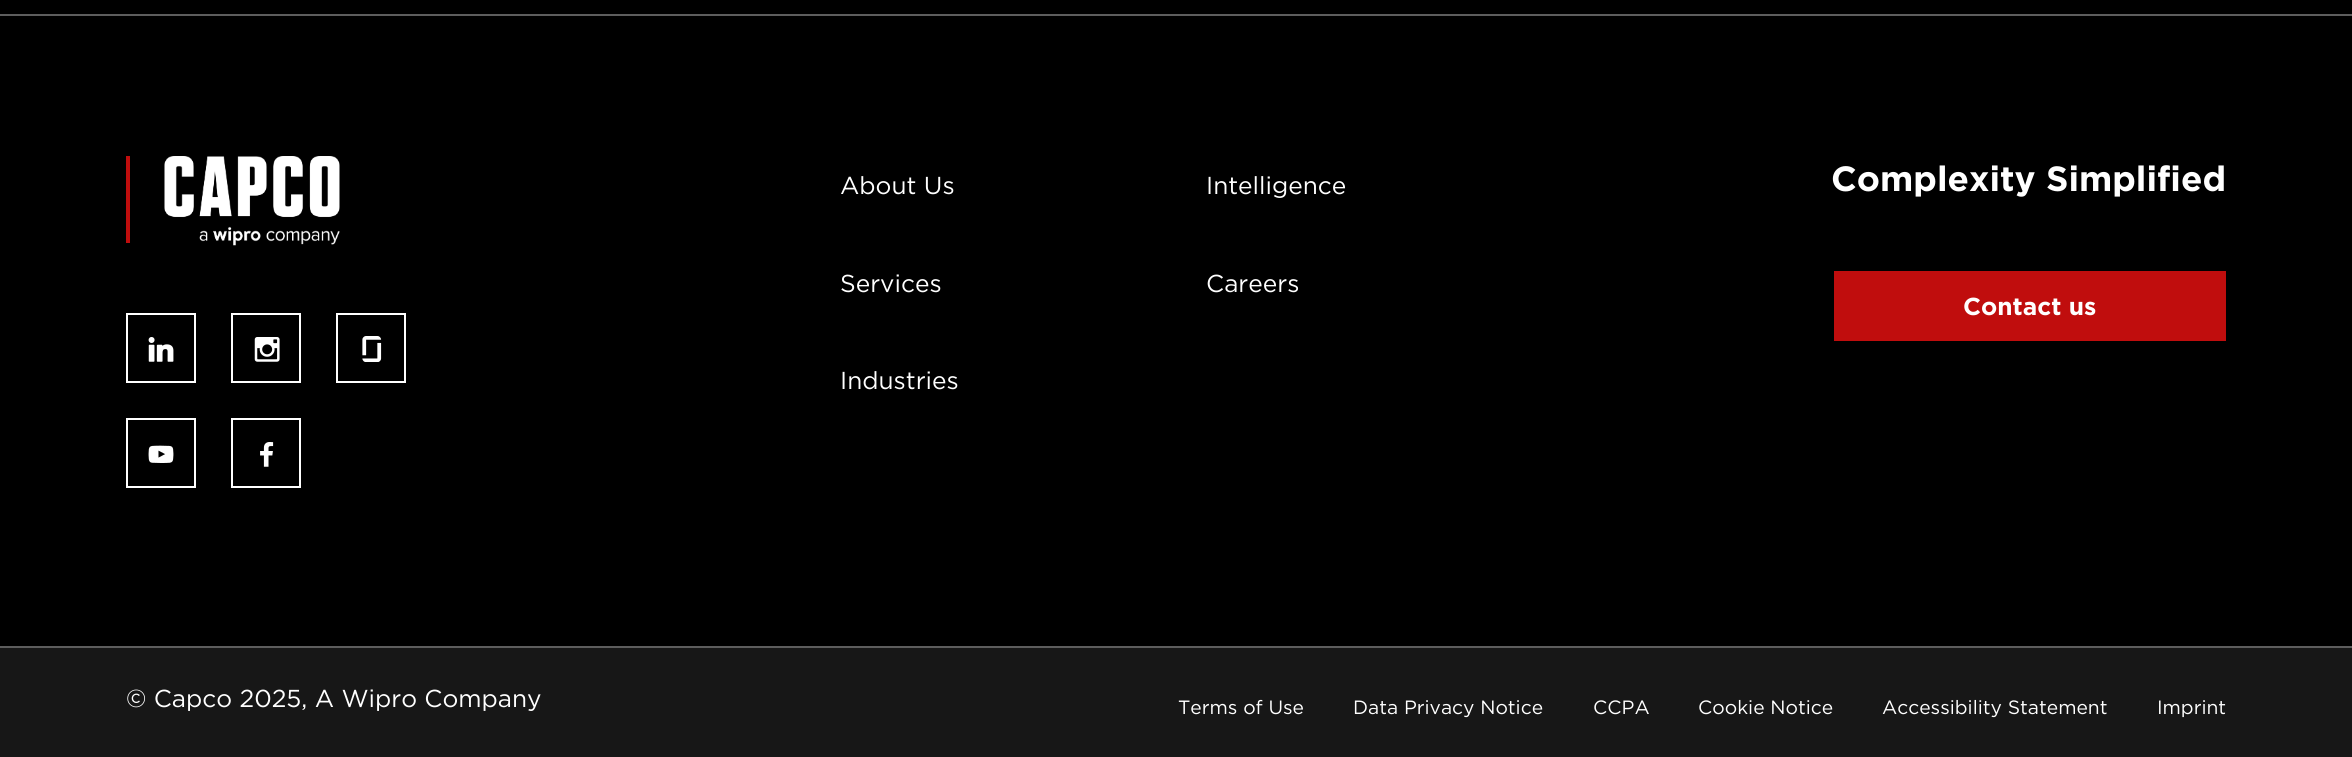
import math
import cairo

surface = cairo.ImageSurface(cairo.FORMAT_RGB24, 2352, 757)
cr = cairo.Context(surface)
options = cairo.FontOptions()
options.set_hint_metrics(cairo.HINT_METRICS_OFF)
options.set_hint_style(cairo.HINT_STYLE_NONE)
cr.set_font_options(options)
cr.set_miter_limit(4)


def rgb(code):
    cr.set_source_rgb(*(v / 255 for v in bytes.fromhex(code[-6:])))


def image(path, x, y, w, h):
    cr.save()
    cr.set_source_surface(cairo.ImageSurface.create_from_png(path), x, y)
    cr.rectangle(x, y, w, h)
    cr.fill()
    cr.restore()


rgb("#000000")
cr.paint()
for x, y, w, h, color in [
    (0, 14, 2352, 2, "#5d5d5d"),
    (0, 646, 2352, 2, "#5d5d5d"),
    (126, 156, 4, 87, "#c00d0d"),
]:
    rgb(color)
    cr.rectangle(x, y, w, h)
    cr.fill()
image("img/1.png", 164, 156, 176, 90)
cr.rectangle(127, 314, 68, 68)
rgb("#ffffff")
cr.stroke()
image("img/2.png", 148, 337, 26, 25)
cr.rectangle(232, 314, 68, 68)
cr.stroke()
image("img/3.png", 254, 337, 26, 25)
cr.rectangle(337, 314, 68, 68)
cr.stroke()
image("img/4.png", 362, 336, 20, 26)
cr.rectangle(127, 419, 68, 68)
cr.stroke()
image("img/5.png", 148, 445, 26, 18)
cr.rectangle(232, 419, 68, 68)
cr.stroke()
image("img/6.png", 260, 442, 14, 25)
rgb("#c00d0d")
cr.rectangle(1834, 271, 392, 70)
cr.fill()
rgb("#171717")
cr.rectangle(0, 648, 2352, 109)
cr.fill()
cr.select_font_face("gotham")
cr.set_font_size(24.5)
rgb("#ffffff")
for x, y, s in [
    (840, 194, "About Us"),
    (1206, 194, "Intelligence"),
    (840, 292, "Services"),
    (1206, 292, "Careers"),
    (840, 389, "Industries"),
]:
    cr.move_to(x, y)
    cr.show_text(s)
cr.select_font_face("gotham", cairo.FONT_SLANT_NORMAL, cairo.FONT_WEIGHT_BOLD)
cr.set_font_size(35)
cr.move_to(1831, 191)
cr.show_text("Complexity Simplified")
cr.set_font_size(24.5)
cr.move_to(1963, 315)
cr.show_text("Contact us")
cr.select_font_face("gotham")
cr.move_to(126, 707)
cr.show_text("© Capco 2025, A Wipro Company")
cr.set_font_size(19.25)
for x, y, s in [
    (1178, 714, "Terms of Use"),
    (1353, 714, "Data Privacy Notice"),
    (1593, 714, "CCPA"),
    (1698, 714, "Cookie Notice"),
    (1882, 714, "Accessibility Statement"),
    (2157, 714, "Imprint"),
]:
    cr.move_to(x, y)
    cr.show_text(s)
surface.write_to_png("page.png")
